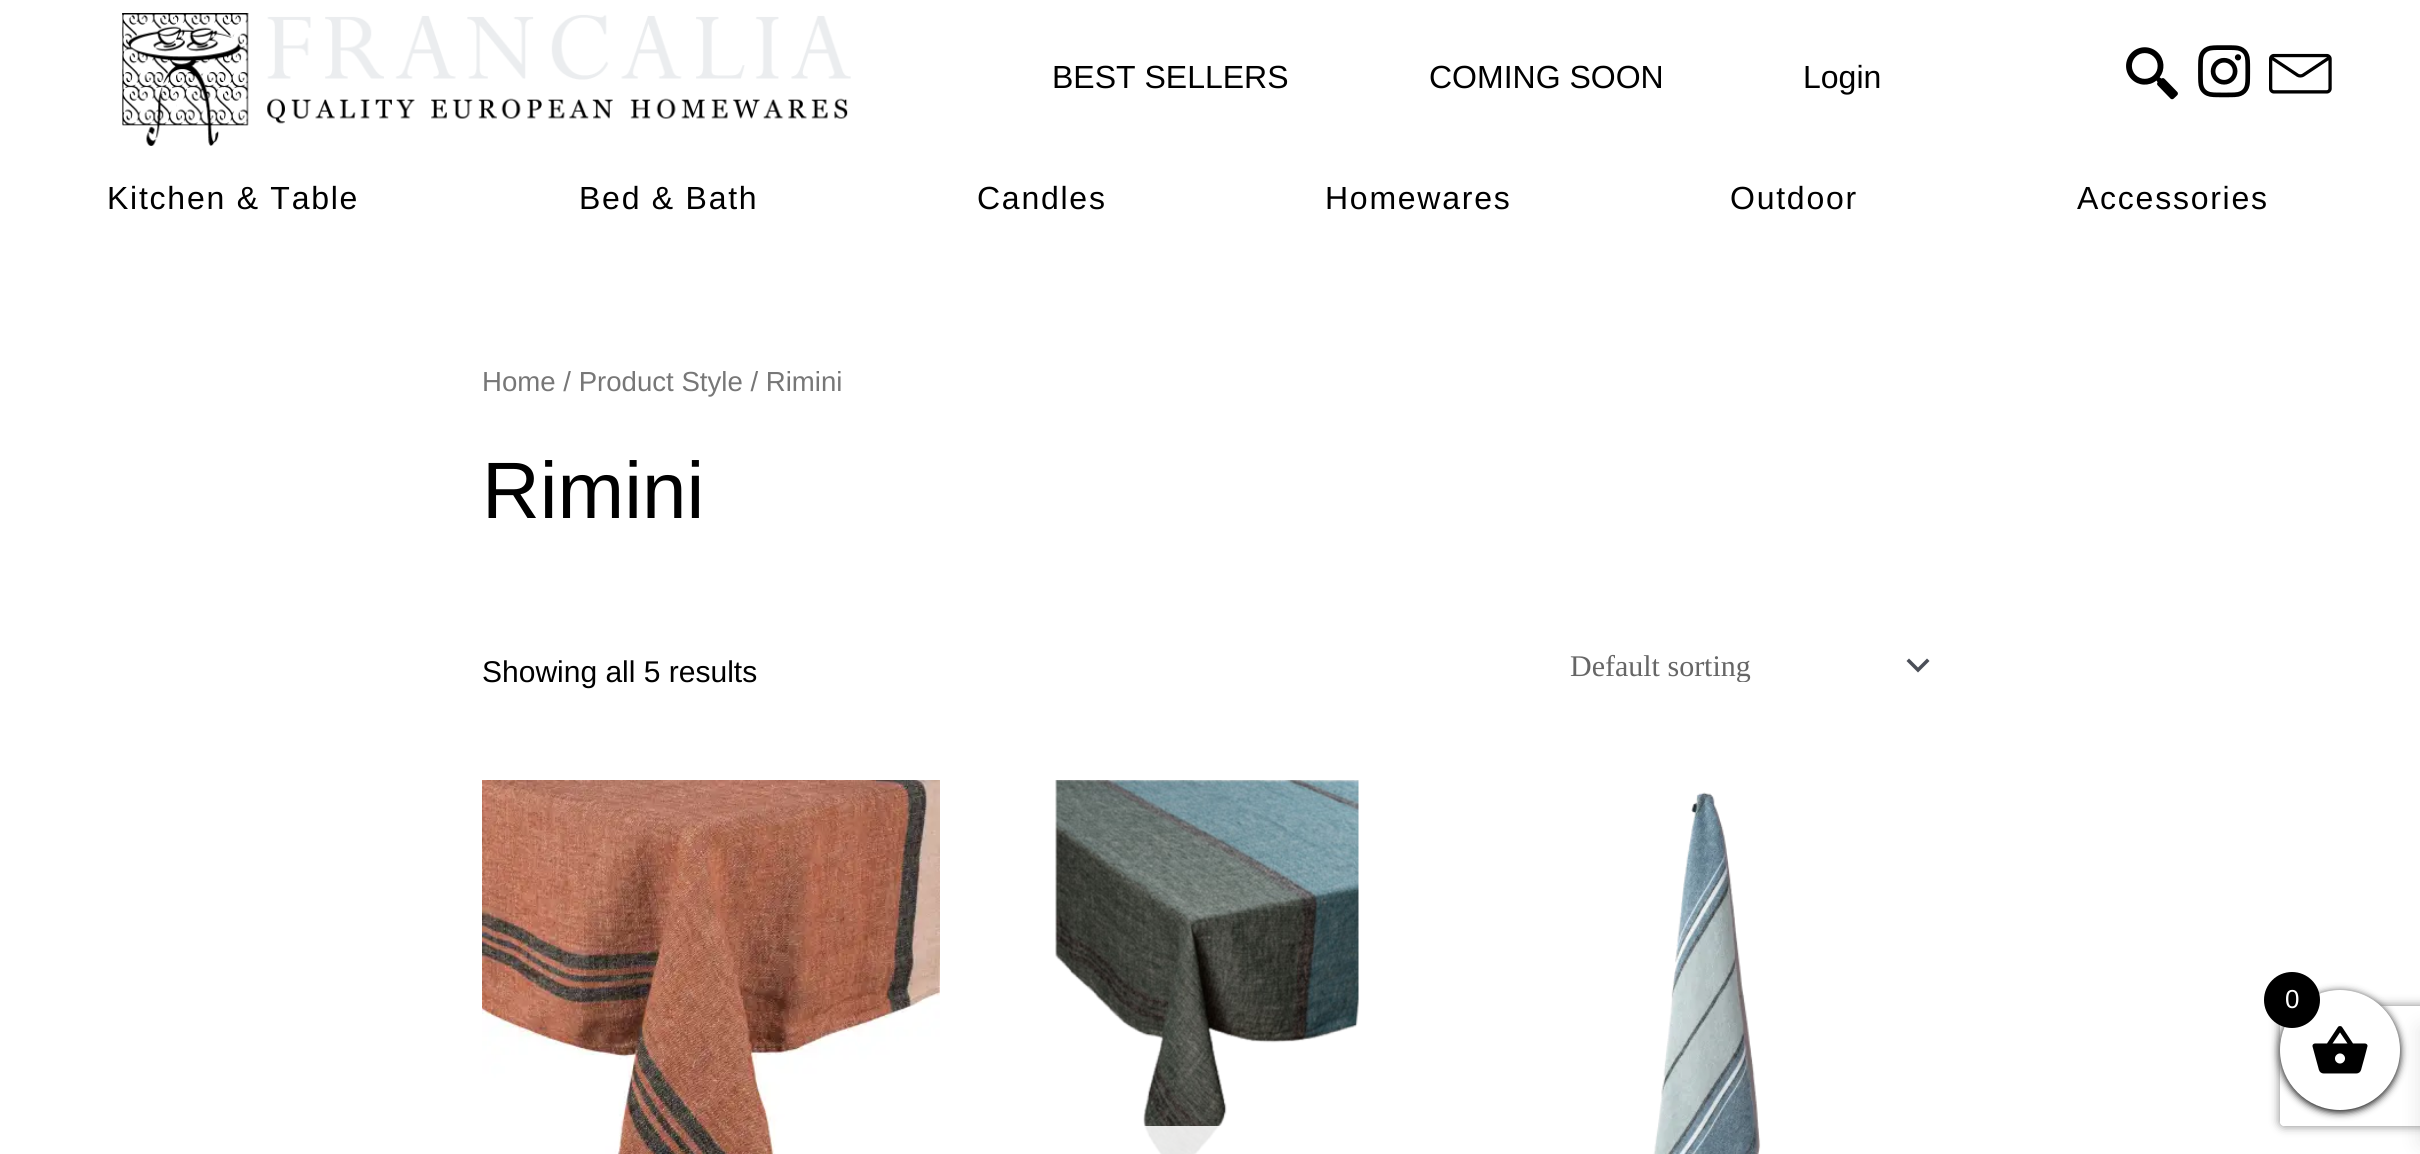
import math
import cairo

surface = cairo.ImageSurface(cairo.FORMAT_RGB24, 2420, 1154)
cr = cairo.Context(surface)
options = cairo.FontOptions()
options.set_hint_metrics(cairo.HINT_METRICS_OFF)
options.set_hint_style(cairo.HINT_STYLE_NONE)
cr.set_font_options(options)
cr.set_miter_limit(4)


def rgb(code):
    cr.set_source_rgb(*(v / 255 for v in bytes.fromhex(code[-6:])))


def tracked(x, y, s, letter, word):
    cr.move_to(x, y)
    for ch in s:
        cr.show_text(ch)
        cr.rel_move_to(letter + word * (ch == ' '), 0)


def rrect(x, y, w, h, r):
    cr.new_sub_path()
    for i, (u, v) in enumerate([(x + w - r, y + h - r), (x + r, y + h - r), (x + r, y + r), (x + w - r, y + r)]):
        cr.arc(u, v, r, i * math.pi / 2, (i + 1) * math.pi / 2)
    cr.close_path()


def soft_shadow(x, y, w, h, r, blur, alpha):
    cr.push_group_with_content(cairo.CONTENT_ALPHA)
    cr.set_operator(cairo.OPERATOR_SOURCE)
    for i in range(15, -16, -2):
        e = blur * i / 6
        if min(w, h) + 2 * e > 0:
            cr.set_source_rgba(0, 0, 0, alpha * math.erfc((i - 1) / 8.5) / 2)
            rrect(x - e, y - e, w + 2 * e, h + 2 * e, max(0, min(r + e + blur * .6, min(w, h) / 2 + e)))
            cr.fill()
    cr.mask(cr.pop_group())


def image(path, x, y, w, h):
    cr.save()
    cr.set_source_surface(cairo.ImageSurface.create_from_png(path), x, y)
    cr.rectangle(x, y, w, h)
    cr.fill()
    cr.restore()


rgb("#ffffff")
cr.paint()
image("img/1.png", 122, 13, 729, 133)
image("img/2.png", 2126, 47, 52, 53)
image("img/3.png", 2198, 45, 53, 53)
image("img/4.png", 2269, 53, 63, 41)
rgb("#4b4f58")
cr.new_path()
cr.move_to(1906.5, 661)
cr.line_to(1918, 672.5)
cr.line_to(1929.5, 661)
cr.line_to(1927, 658.5)
cr.line_to(1918, 667.5)
cr.line_to(1909, 658.5)
cr.close_path()
cr.fill()
image("img/5.png", 482, 780, 458, 374)
image("img/6.png", 1055, 780, 304, 374)
cr.set_source_rgba(1, 1, 1, 0.88)
cr.rectangle(1144, 1126, 77, 28)
cr.fill()
image("img/7.png", 1653, 792, 108, 362)
rgb("#000000")
soft_shadow(2280, 992, 120, 120, 60, 4, 1)
soft_shadow(2420, 1028, 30, 116, 0, 10, 0.1)
cr.save()
cr.set_fill_rule(cairo.FILL_RULE_EVEN_ODD)
cr.new_path()
cr.move_to(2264, 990)
cr.line_to(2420, 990)
cr.line_to(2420, 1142)
cr.line_to(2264, 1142)
cr.close_path()
cr.move_to(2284, 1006)
cr.line_to(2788, 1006)
cr.curve_to(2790, 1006, 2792, 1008, 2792, 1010)
cr.line_to(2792, 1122)
cr.curve_to(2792, 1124, 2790, 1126, 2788, 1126)
cr.line_to(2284, 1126)
cr.curve_to(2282, 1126, 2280, 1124, 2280, 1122)
cr.line_to(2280, 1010)
cr.curve_to(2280, 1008, 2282, 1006, 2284, 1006)
cr.close_path()
cr.clip()
rgb("#808080")
soft_shadow(2280, 1006, 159, 120, 4, 5, 1)
cr.restore()
rgb("#ffffff")
cr.arc(2340, 1050, 60, 0, 2 * math.pi)
cr.fill()
image("img/8.png", 2312, 1026, 56, 48)
rgb("#000000")
cr.arc(2292, 1000, 28, 0, 2 * math.pi)
cr.fill()
cr.select_font_face("Liberation Sans")
cr.set_font_size(32)
for x, y, s in [
    (1052, 88, "BEST SELLERS"),
    (1429, 88, "COMING SOON"),
    (1803, 88, "Login"),
]:
    cr.move_to(x, y)
    cr.show_text(s)
for x, y, s in [
    (107, 209, "Kitchen & Table"),
    (579, 209, "Bed & Bath"),
    (977, 209, "Candles"),
    (1325, 209, "Homewares"),
    (1730, 209, "Outdoor"),
    (2077, 209, "Accessories"),
]:
    tracked(x, y, s, 1.75, 0)
cr.set_font_size(27.6)
rgb("#777777")
cr.move_to(482, 391)
cr.show_text("Home / Product Style / Rimini")
cr.set_font_size(80)
rgb("#000000")
cr.move_to(482, 518)
cr.show_text("Rimini")
cr.set_font_size(30)
cr.move_to(482, 682)
cr.show_text("Showing all 5 results")
cr.save()
cr.rectangle(1570, 650, 308, 32)
cr.clip()
cr.select_font_face("Liberation Serif")
rgb("#666666")
cr.move_to(1570, 676)
cr.show_text("Default sorting")
cr.restore()
cr.set_font_size(26)
rgb("#ffffff")
cr.move_to(2285, 1008)
cr.show_text("0")
surface.write_to_png("page.png")
